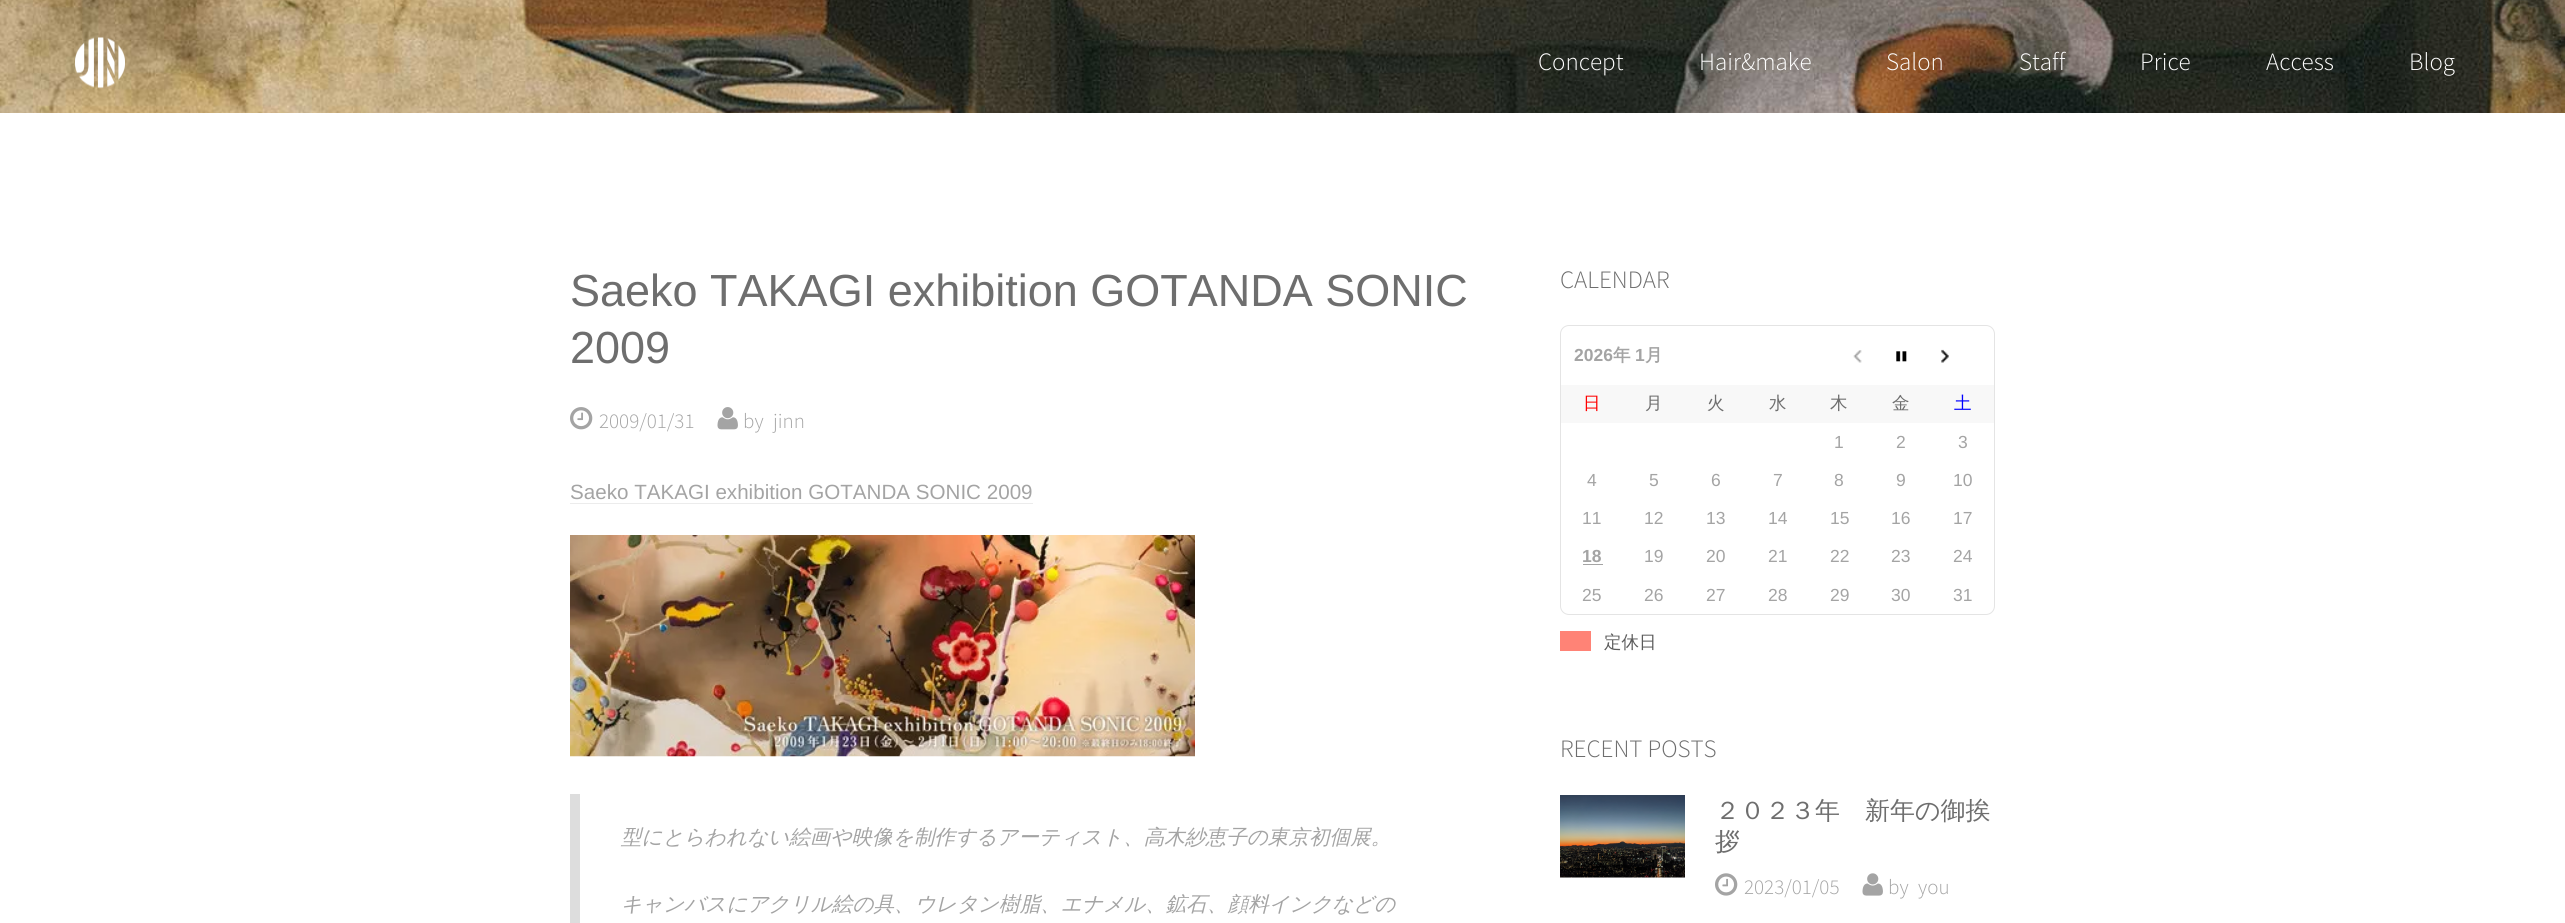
import math
import cairo

surface = cairo.ImageSurface(cairo.FORMAT_RGB24, 2565, 923)
cr = cairo.Context(surface)
options = cairo.FontOptions()
options.set_hint_metrics(cairo.HINT_METRICS_OFF)
options.set_hint_style(cairo.HINT_STYLE_NONE)
cr.set_font_options(options)
cr.set_miter_limit(4)


def rgb(code):
    cr.set_source_rgb(*(v / 255 for v in bytes.fromhex(code[-6:])))


def rrect(x, y, w, h, r):
    cr.new_sub_path()
    for i, (u, v) in enumerate([(x + w - r, y + h - r), (x + r, y + h - r), (x + r, y + r), (x + w - r, y + r)]):
        cr.arc(u, v, r, i * math.pi / 2, (i + 1) * math.pi / 2)
    cr.close_path()


def image(path, x, y, w, h):
    cr.save()
    cr.set_source_surface(cairo.ImageSurface.create_from_png(path), x, y)
    cr.rectangle(x, y, w, h)
    cr.fill()
    cr.restore()


rgb("#ffffff")
cr.paint()
image("img/1.png", 0, 0, 2565, 113)
image("img/2.png", 75, 37, 50, 51)
image("img/3.png", 570, 407, 23, 23)
image("img/4.png", 717, 407, 21, 23)
rgb("#ececec")
cr.rectangle(570, 503, 463, 1)
cr.fill()
image("img/5.png", 570, 535, 625, 222)
rgb("#dddddd")
cr.rectangle(570, 794, 10, 129)
cr.fill()
rrect(1560.5, 325.5, 434, 289, 8.5)
rgb("#e4e4e4")
cr.set_line_width(1)
cr.stroke()
image("img/6.png", 1853, 350, 9, 13)
image("img/7.png", 1896, 351, 11, 11)
image("img/8.png", 1941, 349, 8, 14)
for x, y, w, h, color in [
    (1561, 385, 433, 38, "#f8f8f8"),
    (1583, 564, 20, 1, "#a4a4a4"),
    (1560, 631, 31, 20, "#ff8376"),
]:
    rgb(color)
    cr.rectangle(x, y, w, h)
    cr.fill()
image("img/9.png", 1560, 795, 125, 83)
image("img/10.png", 1715, 873, 23, 23)
image("img/11.png", 1862, 873, 21, 23)
cr.select_font_face("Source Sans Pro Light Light")
cr.set_font_size(25)
rgb("#ffffff")
for x, y, s in [
    (1538, 70, "Concept"),
    (1699, 70, "Hair&make"),
    (1886, 70, "Salon"),
    (2019, 70, "Staff"),
    (2140, 70, "Price"),
    (2266, 70, "Access"),
    (2409, 70, "Blog"),
]:
    cr.move_to(x, y)
    cr.show_text(s)
cr.select_font_face("Liberation Sans")
cr.set_font_size(45)
rgb("#6e6e6e")
cr.move_to(570, 306)
cr.show_text("Saeko TAKAGI exhibition GOTANDA SONIC")
cr.move_to(570, 363)
cr.show_text("2009")
cr.select_font_face("Source Sans Pro Light Light")
cr.set_font_size(21)
rgb("#a4a4a4")
for x, y, s in [
    (599, 428, "2009/01/31"),
    (743, 428, "by"),
    (773, 428, "jinn"),
]:
    cr.move_to(x, y)
    cr.show_text(s)
cr.select_font_face("Liberation Sans")
cr.set_font_size(20.6)
cr.move_to(570, 499)
cr.show_text("Saeko TAKAGI exhibition GOTANDA SONIC 2009")
cr.select_font_face("WenQuanYi Zen Hei Medium", cairo.FONT_SLANT_ITALIC)
cr.move_to(621, 844)
cr.show_text("型にとらわれない絵画や映像を制作するアーティスト、高木紗恵子の東京初個展。")
cr.move_to(621, 911)
cr.show_text("キャンバスにアクリル絵の具、ウレタン樹脂、エナメル、鉱石、顔料インクなどの")
cr.select_font_face("Source Sans Pro Light Light")
cr.set_font_size(25)
rgb("#6e6e6e")
cr.move_to(1560, 288)
cr.show_text("CALENDAR")
cr.select_font_face("Liberation Sans", cairo.FONT_SLANT_NORMAL, cairo.FONT_WEIGHT_BOLD)
cr.set_font_size(17.5)
rgb("#a4a4a4")
cr.move_to(1574, 361)
cr.show_text("2026")
cr.select_font_face("WenQuanYi Zen Hei", cairo.FONT_SLANT_NORMAL, cairo.FONT_WEIGHT_BOLD)
cr.move_to(1613, 361)
cr.show_text("年")
cr.select_font_face("Liberation Sans", cairo.FONT_SLANT_NORMAL, cairo.FONT_WEIGHT_BOLD)
cr.move_to(1635, 361)
cr.show_text("1")
cr.select_font_face("WenQuanYi Zen Hei", cairo.FONT_SLANT_NORMAL, cairo.FONT_WEIGHT_BOLD)
cr.move_to(1645, 361)
cr.show_text("月")
cr.select_font_face("WenQuanYi Zen Hei Medium")
rgb("#ff0000")
cr.move_to(1583, 409)
cr.show_text("日")
rgb("#6e6e6e")
for x, y, s in [
    (1645, 409, "月"),
    (1707, 409, "火"),
    (1769, 409, "水"),
    (1830, 409, "木"),
    (1892, 409, "金"),
]:
    cr.move_to(x, y)
    cr.show_text(s)
rgb("#0000ff")
cr.move_to(1954, 409)
cr.show_text("土")
cr.select_font_face("Liberation Sans")
rgb("#a4a4a4")
for x, y, s in [
    (1834, 448, "1"),
    (1896, 448, "2"),
    (1958, 448, "3"),
    (1587, 486, "4"),
    (1649, 486, "5"),
    (1711, 486, "6"),
    (1773, 486, "7"),
    (1834, 486, "8"),
    (1896, 486, "9"),
    (1953, 486, "10"),
    (1582, 524, "11"),
    (1644, 524, "12"),
    (1706, 524, "13"),
    (1768, 524, "14"),
    (1830, 524, "15"),
    (1891, 524, "16"),
    (1953, 524, "17"),
]:
    cr.move_to(x, y)
    cr.show_text(s)
cr.select_font_face("Liberation Sans", cairo.FONT_SLANT_NORMAL, cairo.FONT_WEIGHT_BOLD)
cr.move_to(1582, 562)
cr.show_text("18")
cr.select_font_face("Liberation Sans")
for x, y, s in [
    (1644, 562, "19"),
    (1706, 562, "20"),
    (1768, 562, "21"),
    (1830, 562, "22"),
    (1891, 562, "23"),
    (1953, 562, "24"),
    (1582, 601, "25"),
    (1644, 601, "26"),
    (1706, 601, "27"),
    (1768, 601, "28"),
    (1830, 601, "29"),
    (1891, 601, "30"),
    (1953, 601, "31"),
]:
    cr.move_to(x, y)
    cr.show_text(s)
cr.select_font_face("WenQuanYi Zen Hei Medium")
rgb("#5b5b5b")
cr.move_to(1604, 648)
cr.show_text("定休日")
cr.select_font_face("Source Sans Pro Light Light")
cr.set_font_size(25)
rgb("#6e6e6e")
cr.move_to(1560, 757)
cr.show_text("RECENT POSTS")
cr.select_font_face("WenQuanYi Zen Hei Medium")
cr.move_to(1715, 819)
cr.show_text("２０２３年　新年の御挨")
cr.move_to(1715, 850)
cr.show_text("拶")
cr.select_font_face("Source Sans Pro Light Light")
cr.set_font_size(21)
rgb("#a4a4a4")
for x, y, s in [
    (1744, 894, "2023/01/05"),
    (1888, 894, "by"),
    (1918, 894, "you"),
]:
    cr.move_to(x, y)
    cr.show_text(s)
surface.write_to_png("page.png")
